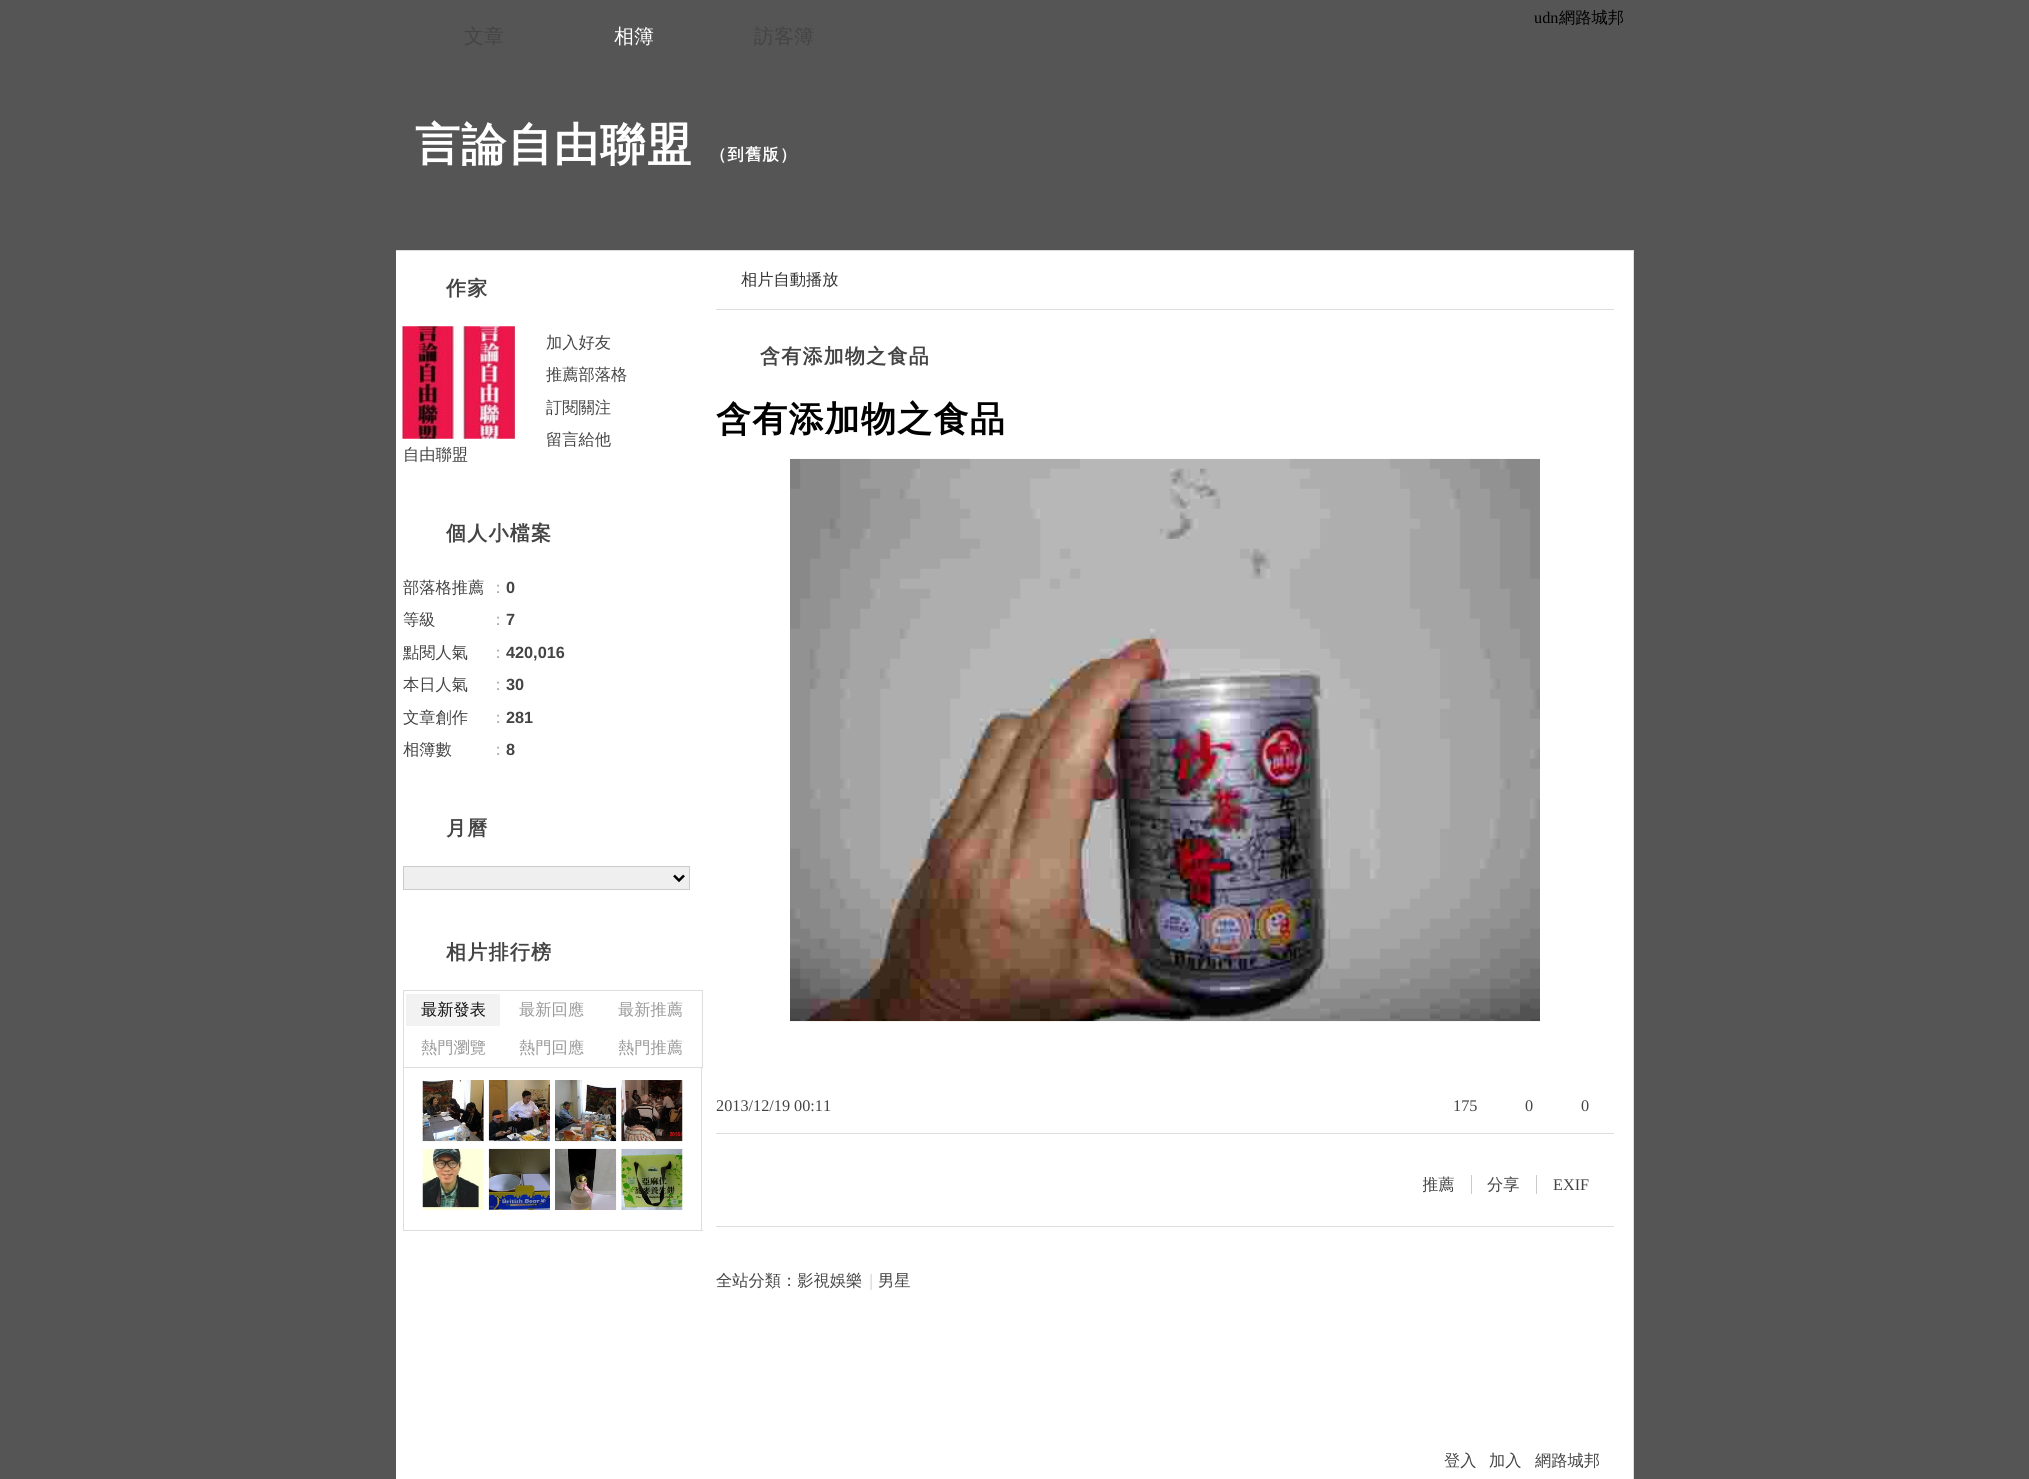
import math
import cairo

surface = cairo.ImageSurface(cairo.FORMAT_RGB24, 2029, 1479)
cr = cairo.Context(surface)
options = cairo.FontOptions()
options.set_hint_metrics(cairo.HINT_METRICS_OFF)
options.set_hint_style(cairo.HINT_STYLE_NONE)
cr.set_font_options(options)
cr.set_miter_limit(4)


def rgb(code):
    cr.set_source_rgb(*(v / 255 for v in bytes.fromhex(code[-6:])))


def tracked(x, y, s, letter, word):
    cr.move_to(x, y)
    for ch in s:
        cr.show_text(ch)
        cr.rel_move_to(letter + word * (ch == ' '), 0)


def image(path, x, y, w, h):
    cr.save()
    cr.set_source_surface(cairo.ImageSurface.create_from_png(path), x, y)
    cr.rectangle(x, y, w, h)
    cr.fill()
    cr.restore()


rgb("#555555")
cr.paint()
rgb("#dddddd")
cr.rectangle(396, 250, 1238, 1)
cr.fill()
rgb("#ffffff")
cr.rectangle(396, 251, 1237, 1228)
cr.fill()
image("img/1.png", 402, 326, 113, 113)
rgb("#efefef")
cr.rectangle(403.5, 866.5, 286, 23)
cr.fill_preserve()
rgb("#cccccc")
cr.set_line_width(1)
cr.stroke()
cr.new_path()
cr.move_to(674, 875.5)
cr.line_to(679, 880.5)
cr.line_to(684, 875.5)
rgb("#000000")
cr.set_line_width(2.5)
cr.stroke()
cr.rectangle(403.5, 990.5, 299, 77)
rgb("#dddddd")
cr.set_line_width(1)
cr.stroke()
for x, y, w, h, color in [
    (406, 994, 94, 32, "#f2f2f2"),
    (701, 1068, 1, 163, "#dddddd"),
    (403, 1230, 300, 1, "#dddddd"),
    (403, 1068, 1, 163, "#dddddd"),
]:
    rgb(color)
    cr.rectangle(x, y, w, h)
    cr.fill()
image("img/2.png", 422, 1080, 62, 62)
image("img/3.png", 488, 1080, 62, 62)
image("img/4.png", 555, 1080, 62, 62)
image("img/5.png", 621, 1080, 62, 62)
image("img/6.png", 422, 1148, 62, 62)
image("img/7.png", 488, 1148, 62, 62)
image("img/8.png", 555, 1148, 62, 62)
image("img/9.png", 621, 1148, 62, 62)
cr.rectangle(1633, 251, 1, 1228)
cr.fill()
cr.rectangle(716, 309, 898, 1)
cr.fill()
image("img/10.png", 790, 458, 750, 564)
for x, y, w, h, color in [
    (716, 1133, 898, 1, "#dddddd"),
    (1471, 1175, 1, 19, "#cccccc"),
    (1536, 1175, 1, 19, "#cccccc"),
    (716, 1226, 898, 1, "#dddddd"),
]:
    rgb(color)
    cr.rectangle(x, y, w, h)
    cr.fill()
cr.select_font_face("Liberation Serif")
cr.set_font_size(16.25)
rgb("#000000")
cr.move_to(1534, 23)
cr.show_text("udn")
cr.select_font_face("WenQuanYi Zen Hei Medium")
cr.move_to(1559, 23)
cr.show_text("網路城邦")
cr.set_font_size(20)
rgb("#444444")
cr.move_to(464, 43)
cr.show_text("文章")
rgb("#ffffff")
cr.move_to(614, 43)
cr.show_text("相簿")
rgb("#444444")
cr.move_to(754, 43)
cr.show_text("訪客簿")
cr.select_font_face("WenQuanYi Zen Hei", cairo.FONT_SLANT_NORMAL, cairo.FONT_WEIGHT_BOLD)
cr.set_font_size(45)
rgb("#ffffff")
tracked(415, 160, "言論自由聯盟", 1.25, 0)
cr.set_font_size(16.25)
tracked(710, 160, "（到舊版）", 1.25, 0)
cr.set_font_size(20)
rgb("#444444")
tracked(446, 295, "作家", 1.25, 0)
cr.select_font_face("WenQuanYi Zen Hei Medium")
cr.set_font_size(16.25)
for x, y, s in [
    (546, 348, "加入好友"),
    (546, 380, "推薦部落格"),
    (546, 413, "訂閱關注"),
    (546, 445, "留言給他"),
    (403, 460, "自由聯盟"),
]:
    cr.move_to(x, y)
    cr.show_text(s)
cr.select_font_face("WenQuanYi Zen Hei", cairo.FONT_SLANT_NORMAL, cairo.FONT_WEIGHT_BOLD)
cr.set_font_size(20)
tracked(446, 540, "個人小檔案", 1.25, 0)
cr.select_font_face("WenQuanYi Zen Hei Medium")
cr.set_font_size(16.25)
cr.move_to(403, 593)
cr.show_text("部落格推薦")
rgb("#aaaaaa")
cr.move_to(490, 593)
cr.show_text("：")
cr.select_font_face("Liberation Sans", cairo.FONT_SLANT_NORMAL, cairo.FONT_WEIGHT_BOLD)
rgb("#444444")
cr.move_to(506, 593)
cr.show_text("0")
cr.select_font_face("WenQuanYi Zen Hei Medium")
cr.move_to(403, 625)
cr.show_text("等級")
rgb("#aaaaaa")
cr.move_to(490, 625)
cr.show_text("：")
cr.select_font_face("Liberation Sans", cairo.FONT_SLANT_NORMAL, cairo.FONT_WEIGHT_BOLD)
rgb("#444444")
cr.move_to(506, 625)
cr.show_text("7")
cr.select_font_face("WenQuanYi Zen Hei Medium")
cr.move_to(403, 658)
cr.show_text("點閱人氣")
rgb("#aaaaaa")
cr.move_to(490, 658)
cr.show_text("：")
cr.select_font_face("Liberation Sans", cairo.FONT_SLANT_NORMAL, cairo.FONT_WEIGHT_BOLD)
rgb("#444444")
cr.move_to(506, 658)
cr.show_text("420,016")
cr.select_font_face("WenQuanYi Zen Hei Medium")
cr.move_to(403, 690)
cr.show_text("本日人氣")
rgb("#aaaaaa")
cr.move_to(490, 690)
cr.show_text("：")
cr.select_font_face("Liberation Sans", cairo.FONT_SLANT_NORMAL, cairo.FONT_WEIGHT_BOLD)
rgb("#444444")
cr.move_to(506, 690)
cr.show_text("30")
cr.select_font_face("WenQuanYi Zen Hei Medium")
cr.move_to(403, 723)
cr.show_text("文章創作")
rgb("#aaaaaa")
cr.move_to(490, 723)
cr.show_text("：")
cr.select_font_face("Liberation Sans", cairo.FONT_SLANT_NORMAL, cairo.FONT_WEIGHT_BOLD)
rgb("#444444")
cr.move_to(506, 723)
cr.show_text("281")
cr.select_font_face("WenQuanYi Zen Hei Medium")
cr.move_to(403, 755)
cr.show_text("相簿數")
rgb("#aaaaaa")
cr.move_to(490, 755)
cr.show_text("：")
cr.select_font_face("Liberation Sans", cairo.FONT_SLANT_NORMAL, cairo.FONT_WEIGHT_BOLD)
rgb("#444444")
cr.move_to(506, 755)
cr.show_text("8")
cr.select_font_face("WenQuanYi Zen Hei", cairo.FONT_SLANT_NORMAL, cairo.FONT_WEIGHT_BOLD)
cr.set_font_size(20)
tracked(446, 835, "月曆", 1.25, 0)
tracked(446, 959, "相片排行榜", 1.25, 0)
cr.select_font_face("WenQuanYi Zen Hei Medium")
cr.set_font_size(16.25)
rgb("#111111")
cr.move_to(421, 1015)
cr.show_text("最新發表")
rgb("#999999")
for x, y, s in [
    (519, 1015, "最新回應"),
    (618, 1015, "最新推薦"),
    (421, 1053, "熱門瀏覽"),
    (519, 1053, "熱門回應"),
    (618, 1053, "熱門推薦"),
]:
    cr.move_to(x, y)
    cr.show_text(s)
rgb("#333333")
cr.move_to(741, 285)
cr.show_text("相片自動播放")
cr.select_font_face("WenQuanYi Zen Hei", cairo.FONT_SLANT_NORMAL, cairo.FONT_WEIGHT_BOLD)
cr.set_font_size(20)
rgb("#444444")
tracked(760, 363, "含有添加物之食品", 1.25, 0)
cr.set_font_size(35)
rgb("#000000")
tracked(716, 431, "含有添加物之食品", 1.25, 0)
cr.select_font_face("Liberation Serif")
cr.set_font_size(16.25)
rgb("#444444")
for x, y, s in [
    (716, 1111, "2013/12/19 00:11"),
    (1453, 1111, "175"),
    (1525, 1111, "0"),
    (1581, 1111, "0"),
]:
    cr.move_to(x, y)
    cr.show_text(s)
cr.save()
cr.rectangle(1423, 1169, 191, 32)
cr.clip()
cr.select_font_face("WenQuanYi Zen Hei Medium")
cr.move_to(1422, 1190)
cr.show_text("推薦")
cr.restore()
cr.select_font_face("WenQuanYi Zen Hei Medium")
cr.move_to(1487, 1190)
cr.show_text("分享")
cr.select_font_face("Liberation Serif")
cr.move_to(1553, 1190)
cr.show_text("EXIF")
cr.select_font_face("WenQuanYi Zen Hei Medium")
cr.move_to(716, 1286)
cr.show_text("全站分類：影視娛樂")
rgb("#cccccc")
cr.move_to(863, 1286)
cr.show_text("｜")
rgb("#444444")
for x, y, s in [
    (878, 1286, "男星"),
    (1444, 1466, "登入"),
    (1489, 1466, "加入"),
    (1535, 1466, "網路城邦"),
]:
    cr.move_to(x, y)
    cr.show_text(s)
surface.write_to_png("page.png")
